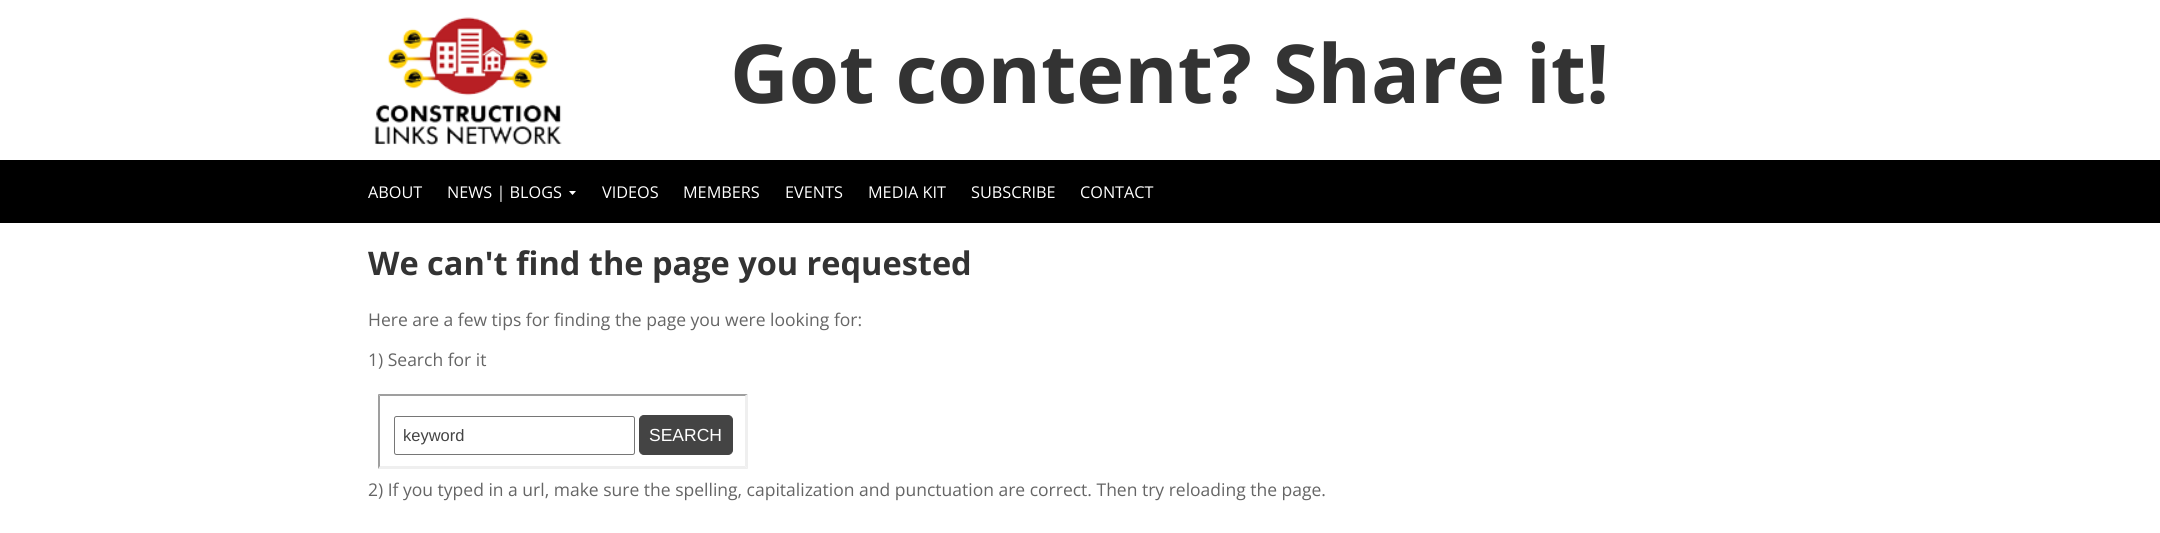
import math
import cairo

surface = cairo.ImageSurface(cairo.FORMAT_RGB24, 2160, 533)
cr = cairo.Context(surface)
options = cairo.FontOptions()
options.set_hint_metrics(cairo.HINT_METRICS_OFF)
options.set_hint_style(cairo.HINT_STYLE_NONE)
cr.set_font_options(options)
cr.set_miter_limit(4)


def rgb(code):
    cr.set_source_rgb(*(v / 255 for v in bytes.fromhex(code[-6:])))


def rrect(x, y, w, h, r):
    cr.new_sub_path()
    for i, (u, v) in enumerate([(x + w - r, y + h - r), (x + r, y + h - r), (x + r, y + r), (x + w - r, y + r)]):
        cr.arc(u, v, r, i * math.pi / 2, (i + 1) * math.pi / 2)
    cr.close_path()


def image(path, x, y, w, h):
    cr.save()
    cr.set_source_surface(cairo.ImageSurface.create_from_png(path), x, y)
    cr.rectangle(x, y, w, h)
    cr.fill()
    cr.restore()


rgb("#ffffff")
cr.paint()
image("img/1.png", 374, 17, 188, 129)
rgb("#000000")
cr.rectangle(0, 160, 2160, 63)
cr.fill()
rgb("#ffffff")
cr.new_path()
cr.move_to(569, 191)
cr.line_to(576, 191)
cr.line_to(572.5, 195)
cr.close_path()
cr.fill()
rgb("#9f9f9f")
cr.new_path()
cr.move_to(378, 394)
cr.line_to(748, 394)
cr.line_to(745, 396)
cr.line_to(380, 396)
cr.close_path()
cr.fill()
rgb("#efefef")
cr.new_path()
cr.move_to(748, 394)
cr.line_to(748, 469)
cr.line_to(745, 466)
cr.line_to(745, 396)
cr.close_path()
cr.fill()
cr.new_path()
cr.move_to(748, 469)
cr.line_to(378, 469)
cr.line_to(380, 466)
cr.line_to(745, 466)
cr.close_path()
cr.fill()
rgb("#9f9f9f")
cr.new_path()
cr.move_to(378, 469)
cr.line_to(378, 394)
cr.line_to(380, 396)
cr.line_to(380, 466)
cr.close_path()
cr.fill()
rrect(394.5, 416.5, 240, 38, 2)
rgb("#767676")
cr.set_line_width(1)
cr.stroke()
rgb("#444444")
rrect(639.5, 415.5, 93, 39, 4.5)
cr.fill_preserve()
cr.stroke()
cr.select_font_face("Open Sans", cairo.FONT_SLANT_NORMAL, cairo.FONT_WEIGHT_BOLD)
cr.set_font_size(81.25)
rgb("#333333")
cr.move_to(730, 103)
cr.show_text("Got content? Share it!")
cr.select_font_face("Open Sans")
cr.set_font_size(16.25)
rgb("#ffffff")
for x, y, s in [
    (368, 198, "ABOUT"),
    (447, 198, "NEWS | BLOGS"),
    (602, 198, "VIDEOS"),
    (683, 198, "MEMBERS"),
    (785, 198, "EVENTS"),
    (868, 198, "MEDIA KIT"),
    (971, 198, "SUBSCRIBE"),
    (1080, 198, "CONTACT"),
]:
    cr.move_to(x, y)
    cr.show_text(s)
cr.select_font_face("Open Sans", cairo.FONT_SLANT_NORMAL, cairo.FONT_WEIGHT_BOLD)
cr.set_font_size(32.5)
rgb("#333333")
cr.move_to(368, 275)
cr.show_text("We can't find the page you requested")
cr.select_font_face("Open Sans")
cr.set_font_size(17.5)
rgb("#656565")
cr.move_to(368, 326)
cr.show_text("Here are a few tips for finding the page you were looking for:")
cr.move_to(368, 366)
cr.show_text("1) Search for it")
cr.select_font_face("Liberation Sans")
cr.set_font_size(16.5)
rgb("#444444")
cr.move_to(403, 441)
cr.show_text("keyword")
cr.set_font_size(17.5)
rgb("#ffffff")
cr.move_to(649, 441)
cr.show_text("SEARCH")
cr.select_font_face("Open Sans")
rgb("#656565")
cr.move_to(368, 496)
cr.show_text("2) If you typed in a url, make sure the spelling, capitalization and punctuation are correct. Then try reloading the page.")
surface.write_to_png("page.png")
